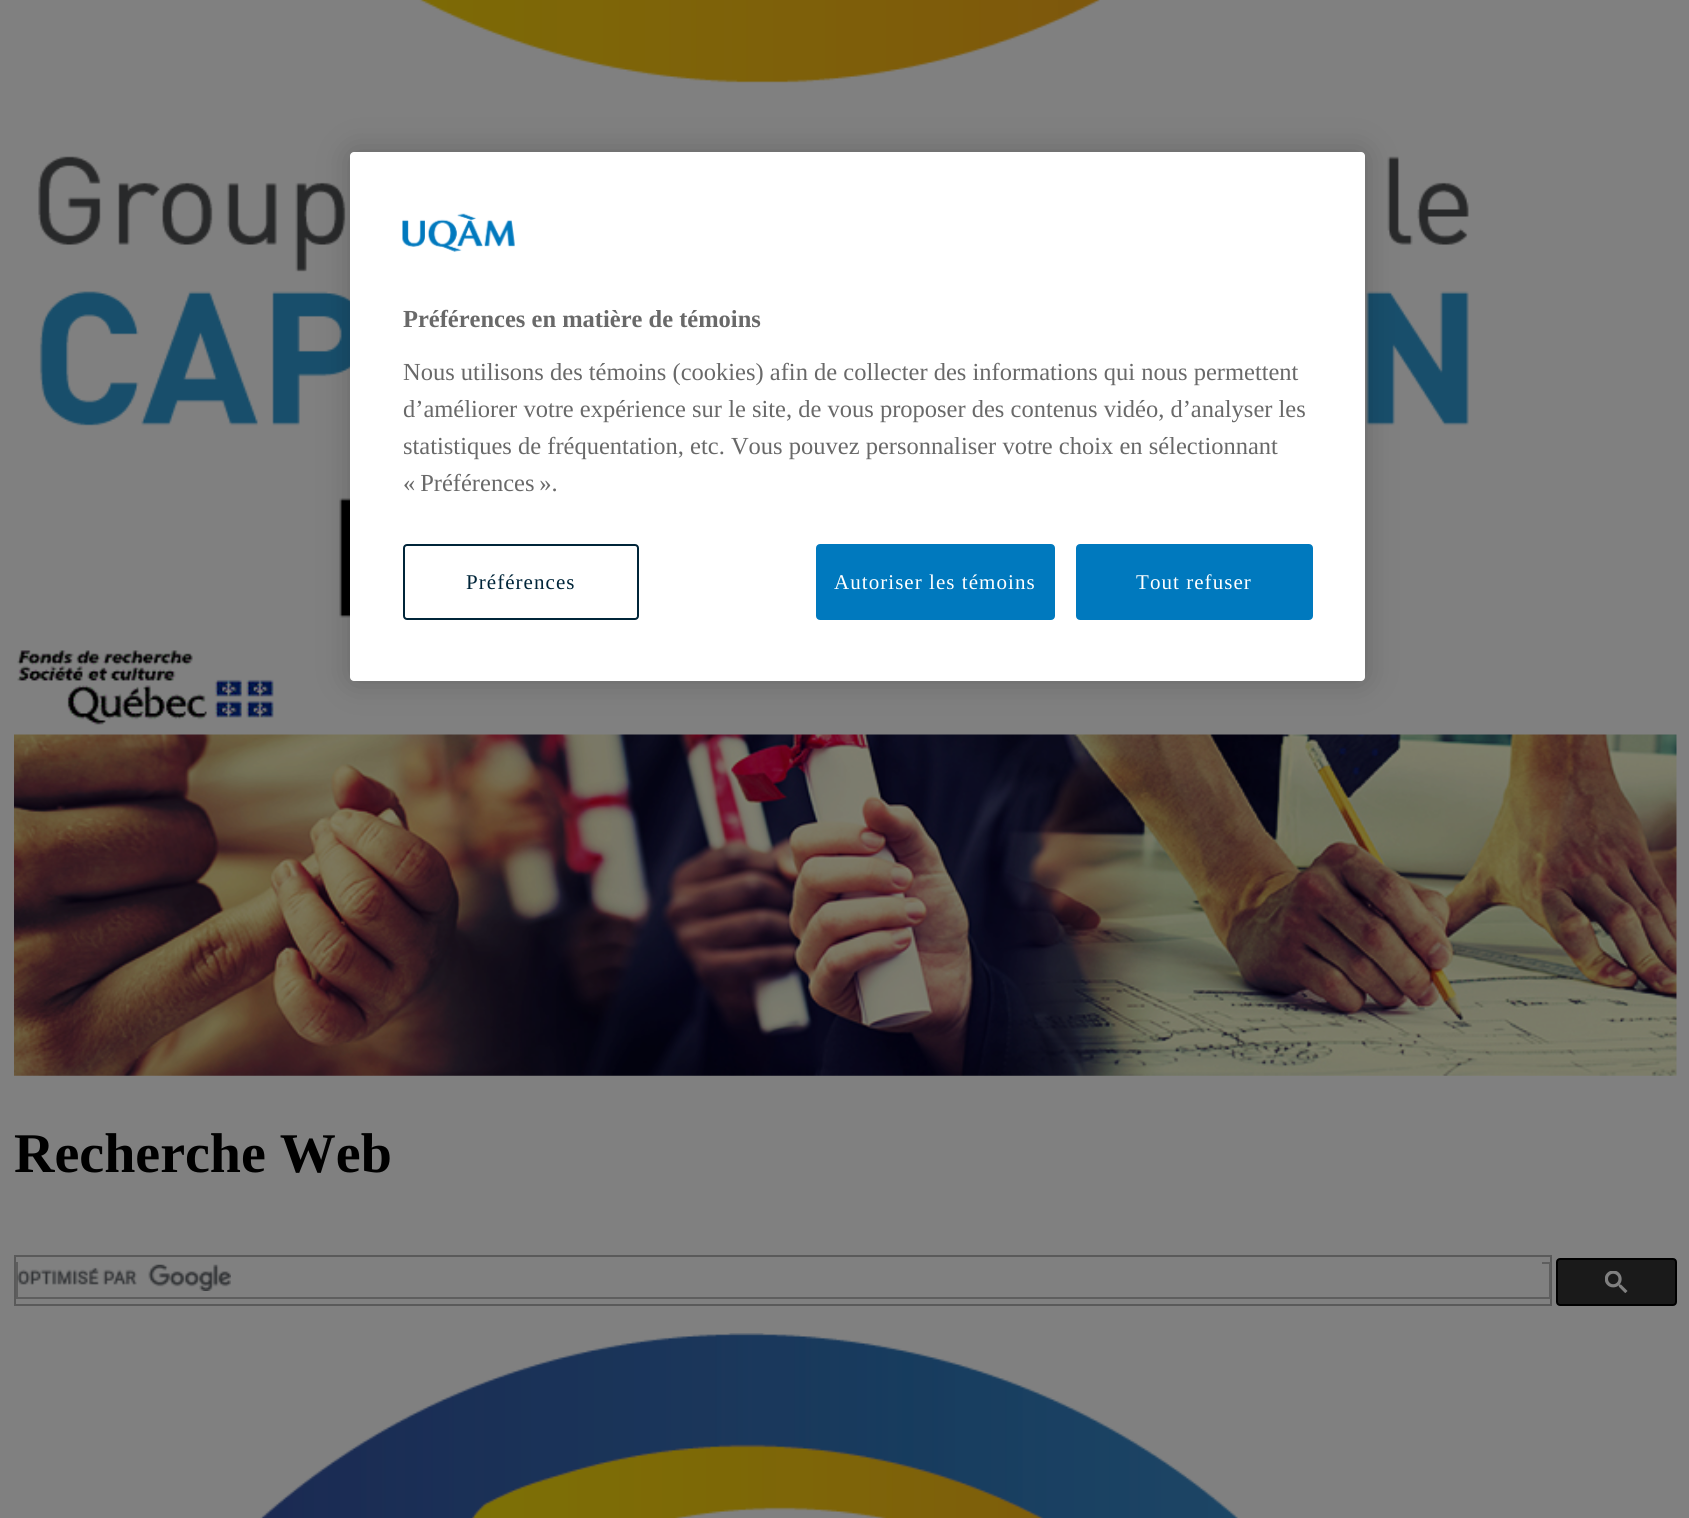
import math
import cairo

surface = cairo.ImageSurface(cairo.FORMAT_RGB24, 1689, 1518)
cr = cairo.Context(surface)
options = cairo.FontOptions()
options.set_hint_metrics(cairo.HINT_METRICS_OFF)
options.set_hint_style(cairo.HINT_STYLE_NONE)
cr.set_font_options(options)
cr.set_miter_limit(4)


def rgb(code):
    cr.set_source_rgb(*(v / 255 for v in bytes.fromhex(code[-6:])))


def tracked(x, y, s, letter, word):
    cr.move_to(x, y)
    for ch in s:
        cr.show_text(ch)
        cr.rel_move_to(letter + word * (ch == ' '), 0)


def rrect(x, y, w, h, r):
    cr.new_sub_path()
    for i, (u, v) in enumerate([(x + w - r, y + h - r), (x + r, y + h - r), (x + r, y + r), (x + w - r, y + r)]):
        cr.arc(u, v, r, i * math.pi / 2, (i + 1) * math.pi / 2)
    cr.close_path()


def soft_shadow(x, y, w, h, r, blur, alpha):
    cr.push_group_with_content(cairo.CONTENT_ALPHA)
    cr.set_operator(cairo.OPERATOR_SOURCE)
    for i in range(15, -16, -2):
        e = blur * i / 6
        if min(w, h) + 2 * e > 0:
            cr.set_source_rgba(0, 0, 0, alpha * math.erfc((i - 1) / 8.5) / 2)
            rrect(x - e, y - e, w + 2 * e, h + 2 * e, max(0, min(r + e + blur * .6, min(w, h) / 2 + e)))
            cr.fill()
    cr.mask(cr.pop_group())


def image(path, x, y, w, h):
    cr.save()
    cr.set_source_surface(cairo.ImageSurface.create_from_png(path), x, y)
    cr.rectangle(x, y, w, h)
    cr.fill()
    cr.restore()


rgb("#808080")
cr.paint()
image("img/2.png", 38, 0, 1431, 618)
rgb("#000000")
soft_shadow(350, 152, 1015, 529, 4, 16, 0.2)
rgb("#ffffff")
rrect(350, 152, 1015, 529, 4)
cr.fill()
image("img/1.png", 402, 213, 113, 39)
rrect(404, 545, 234, 74, 3)
rgb("#002539")
cr.stroke()
rgb("#0079be")
rrect(817, 545, 237, 74, 3)
cr.fill_preserve()
cr.stroke()
rrect(1077, 545, 235, 74, 3)
cr.fill_preserve()
cr.stroke()
image("img/3.png", 17, 650, 257, 75)
image("img/4.png", 14, 734, 1663, 342)
cr.rectangle(15, 1256, 1536, 49)
rgb("#5a5a5a")
cr.stroke()
cr.rectangle(17, 1263, 1533, 35)
rgb("#5e5e5e")
cr.stroke()
rgb("#808080")
cr.rectangle(18, 1262, 1524, 2)
cr.fill()
image("img/5.png", 17, 1264, 214, 27)
rgb("#1a1a1a")
rrect(1557, 1259, 119, 46, 3)
cr.fill_preserve()
rgb("#000000")
cr.stroke()
image("img/6.png", 1605, 1271, 23, 22)
image("img/7.png", 260, 1333, 978, 185)
cr.select_font_face("Liberation Serif", cairo.FONT_SLANT_NORMAL, cairo.FONT_WEIGHT_BOLD)
cr.set_font_size(24.5)
rgb("#696969")
cr.move_to(403, 327)
cr.show_text("Préférences en matière de témoins")
cr.select_font_face("Liberation Serif")
for x, y, s in [
    (403, 380, "Nous utilisons des témoins (cookies) afin de collecter des informations qui nous permettent"),
    (403, 417, "d’améliorer votre expérience sur le site, de vous proposer des contenus vidéo, d’analyser les"),
    (403, 454, "statistiques de fréquentation, etc. Vous pouvez personnaliser votre choix en sélectionnant"),
    (403, 491, "« Préférences »."),
]:
    cr.move_to(x, y)
    cr.show_text(s)
cr.set_font_size(21)
rgb("#002539")
tracked(466, 589, "Préférences", 1.05, 0)
rgb("#ffffff")
tracked(834, 589, "Autoriser les témoins", 1.05, 0)
tracked(1136, 589, "Tout refuser", 1.05, 0)
cr.select_font_face("Liberation Serif", cairo.FONT_SLANT_NORMAL, cairo.FONT_WEIGHT_BOLD)
cr.set_font_size(56)
rgb("#000000")
cr.move_to(14, 1172)
cr.show_text("Recherche Web")
surface.write_to_png("page.png")
